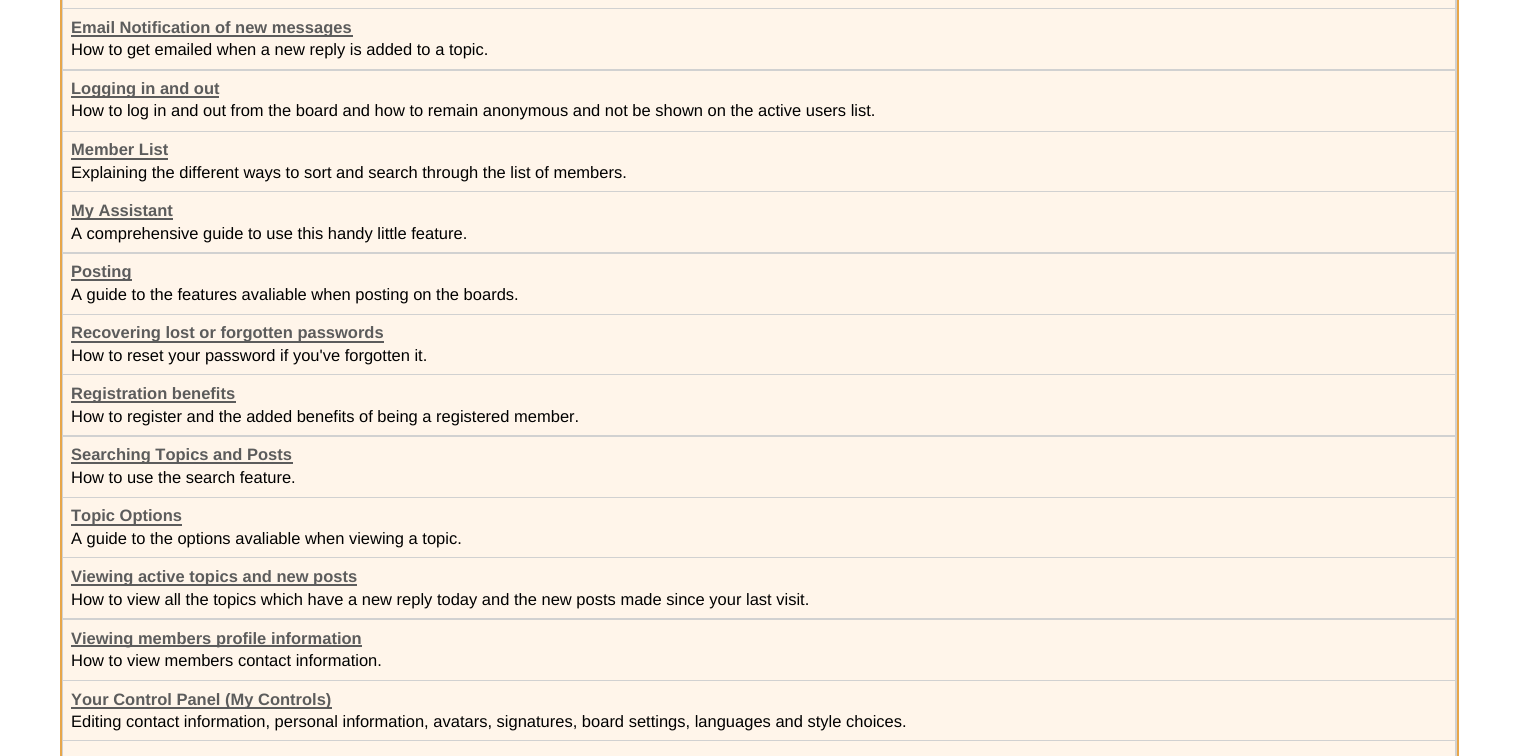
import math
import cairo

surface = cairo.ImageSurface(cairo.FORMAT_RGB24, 1517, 756)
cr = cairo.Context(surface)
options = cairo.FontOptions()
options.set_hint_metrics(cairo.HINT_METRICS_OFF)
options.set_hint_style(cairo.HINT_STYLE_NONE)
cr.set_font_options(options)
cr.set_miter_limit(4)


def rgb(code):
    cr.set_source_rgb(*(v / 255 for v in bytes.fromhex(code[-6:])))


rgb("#ffffff")
cr.paint()
for x, y, w, h, color in [
    (62, 0, 1395, 756, "#d1d1d1"),
    (1457, 0, 2, 756, "#e7a64a"),
    (60, 0, 2, 756, "#e7a64a"),
    (63, 0, 1392, 8, "#fff5ea"),
    (63, 9, 1392, 60, "#fff5ea"),
    (71, 35, 282, 2, "#5c5c5c"),
    (63, 71, 1392, 60, "#fff5ea"),
    (71, 96, 148, 2, "#5c5c5c"),
    (63, 132, 1392, 59, "#fff5ea"),
    (71, 158, 97, 2, "#5c5c5c"),
    (63, 192, 1392, 60, "#fff5ea"),
    (71, 218, 102, 2, "#5c5c5c"),
    (63, 254, 1392, 60, "#fff5ea"),
    (71, 279, 61, 2, "#5c5c5c"),
    (63, 315, 1392, 59, "#fff5ea"),
    (71, 341, 313, 2, "#5c5c5c"),
    (63, 375, 1392, 60, "#fff5ea"),
    (71, 401, 165, 2, "#5c5c5c"),
    (63, 437, 1392, 60, "#fff5ea"),
    (71, 462, 222, 2, "#5c5c5c"),
    (63, 498, 1392, 59, "#fff5ea"),
    (71, 524, 111, 2, "#5c5c5c"),
    (63, 558, 1392, 60, "#fff5ea"),
    (71, 584, 286, 2, "#5c5c5c"),
    (63, 620, 1392, 60, "#fff5ea"),
    (71, 645, 291, 2, "#5c5c5c"),
    (63, 681, 1392, 59, "#fff5ea"),
    (71, 707, 261, 2, "#5c5c5c"),
    (63, 741, 1392, 15, "#fff5ea"),
]:
    rgb(color)
    cr.rectangle(x, y, w, h)
    cr.fill()
cr.select_font_face("Liberation Sans", cairo.FONT_SLANT_NORMAL, cairo.FONT_WEIGHT_BOLD)
cr.set_font_size(16.5)
rgb("#5c5c5c")
cr.move_to(71, 33)
cr.show_text("Email Notification of new messages")
cr.select_font_face("Liberation Sans")
rgb("#000000")
cr.move_to(71, 55)
cr.show_text("How to get emailed when a new reply is added to a topic.")
cr.select_font_face("Liberation Sans", cairo.FONT_SLANT_NORMAL, cairo.FONT_WEIGHT_BOLD)
rgb("#5c5c5c")
cr.move_to(71, 94)
cr.show_text("Logging in and out")
cr.select_font_face("Liberation Sans")
rgb("#000000")
cr.move_to(71, 116)
cr.show_text("How to log in and out from the board and how to remain anonymous and not be shown on the active users list.")
cr.select_font_face("Liberation Sans", cairo.FONT_SLANT_NORMAL, cairo.FONT_WEIGHT_BOLD)
rgb("#5c5c5c")
cr.move_to(71, 155)
cr.show_text("Member List")
cr.select_font_face("Liberation Sans")
rgb("#000000")
cr.move_to(71, 178)
cr.show_text("Explaining the different ways to sort and search through the list of members.")
cr.select_font_face("Liberation Sans", cairo.FONT_SLANT_NORMAL, cairo.FONT_WEIGHT_BOLD)
rgb("#5c5c5c")
cr.move_to(71, 216)
cr.show_text("My Assistant")
cr.select_font_face("Liberation Sans")
rgb("#000000")
cr.move_to(71, 239)
cr.show_text("A comprehensive guide to use this handy little feature.")
cr.select_font_face("Liberation Sans", cairo.FONT_SLANT_NORMAL, cairo.FONT_WEIGHT_BOLD)
rgb("#5c5c5c")
cr.move_to(71, 277)
cr.show_text("Posting")
cr.select_font_face("Liberation Sans")
rgb("#000000")
cr.move_to(71, 300)
cr.show_text("A guide to the features avaliable when posting on the boards.")
cr.select_font_face("Liberation Sans", cairo.FONT_SLANT_NORMAL, cairo.FONT_WEIGHT_BOLD)
rgb("#5c5c5c")
cr.move_to(71, 338)
cr.show_text("Recovering lost or forgotten passwords")
cr.select_font_face("Liberation Sans")
rgb("#000000")
cr.move_to(71, 361)
cr.show_text("How to reset your password if you've forgotten it.")
cr.select_font_face("Liberation Sans", cairo.FONT_SLANT_NORMAL, cairo.FONT_WEIGHT_BOLD)
rgb("#5c5c5c")
cr.move_to(71, 399)
cr.show_text("Registration benefits")
cr.select_font_face("Liberation Sans")
rgb("#000000")
cr.move_to(71, 422)
cr.show_text("How to register and the added benefits of being a registered member.")
cr.select_font_face("Liberation Sans", cairo.FONT_SLANT_NORMAL, cairo.FONT_WEIGHT_BOLD)
rgb("#5c5c5c")
cr.move_to(71, 460)
cr.show_text("Searching Topics and Posts")
cr.select_font_face("Liberation Sans")
rgb("#000000")
cr.move_to(71, 483)
cr.show_text("How to use the search feature.")
cr.select_font_face("Liberation Sans", cairo.FONT_SLANT_NORMAL, cairo.FONT_WEIGHT_BOLD)
rgb("#5c5c5c")
cr.move_to(71, 521)
cr.show_text("Topic Options")
cr.select_font_face("Liberation Sans")
rgb("#000000")
cr.move_to(71, 544)
cr.show_text("A guide to the options avaliable when viewing a topic.")
cr.select_font_face("Liberation Sans", cairo.FONT_SLANT_NORMAL, cairo.FONT_WEIGHT_BOLD)
rgb("#5c5c5c")
cr.move_to(71, 582)
cr.show_text("Viewing active topics and new posts")
cr.select_font_face("Liberation Sans")
rgb("#000000")
cr.move_to(71, 605)
cr.show_text("How to view all the topics which have a new reply today and the new posts made since your last visit.")
cr.select_font_face("Liberation Sans", cairo.FONT_SLANT_NORMAL, cairo.FONT_WEIGHT_BOLD)
rgb("#5c5c5c")
cr.move_to(71, 644)
cr.show_text("Viewing members profile information")
cr.select_font_face("Liberation Sans")
rgb("#000000")
cr.move_to(71, 666)
cr.show_text("How to view members contact information.")
cr.select_font_face("Liberation Sans", cairo.FONT_SLANT_NORMAL, cairo.FONT_WEIGHT_BOLD)
rgb("#5c5c5c")
cr.move_to(71, 705)
cr.show_text("Your Control Panel (My Controls)")
cr.select_font_face("Liberation Sans")
rgb("#000000")
cr.move_to(71, 727)
cr.show_text("Editing contact information, personal information, avatars, signatures, board settings, languages and style choices.")
surface.write_to_png("page.png")
